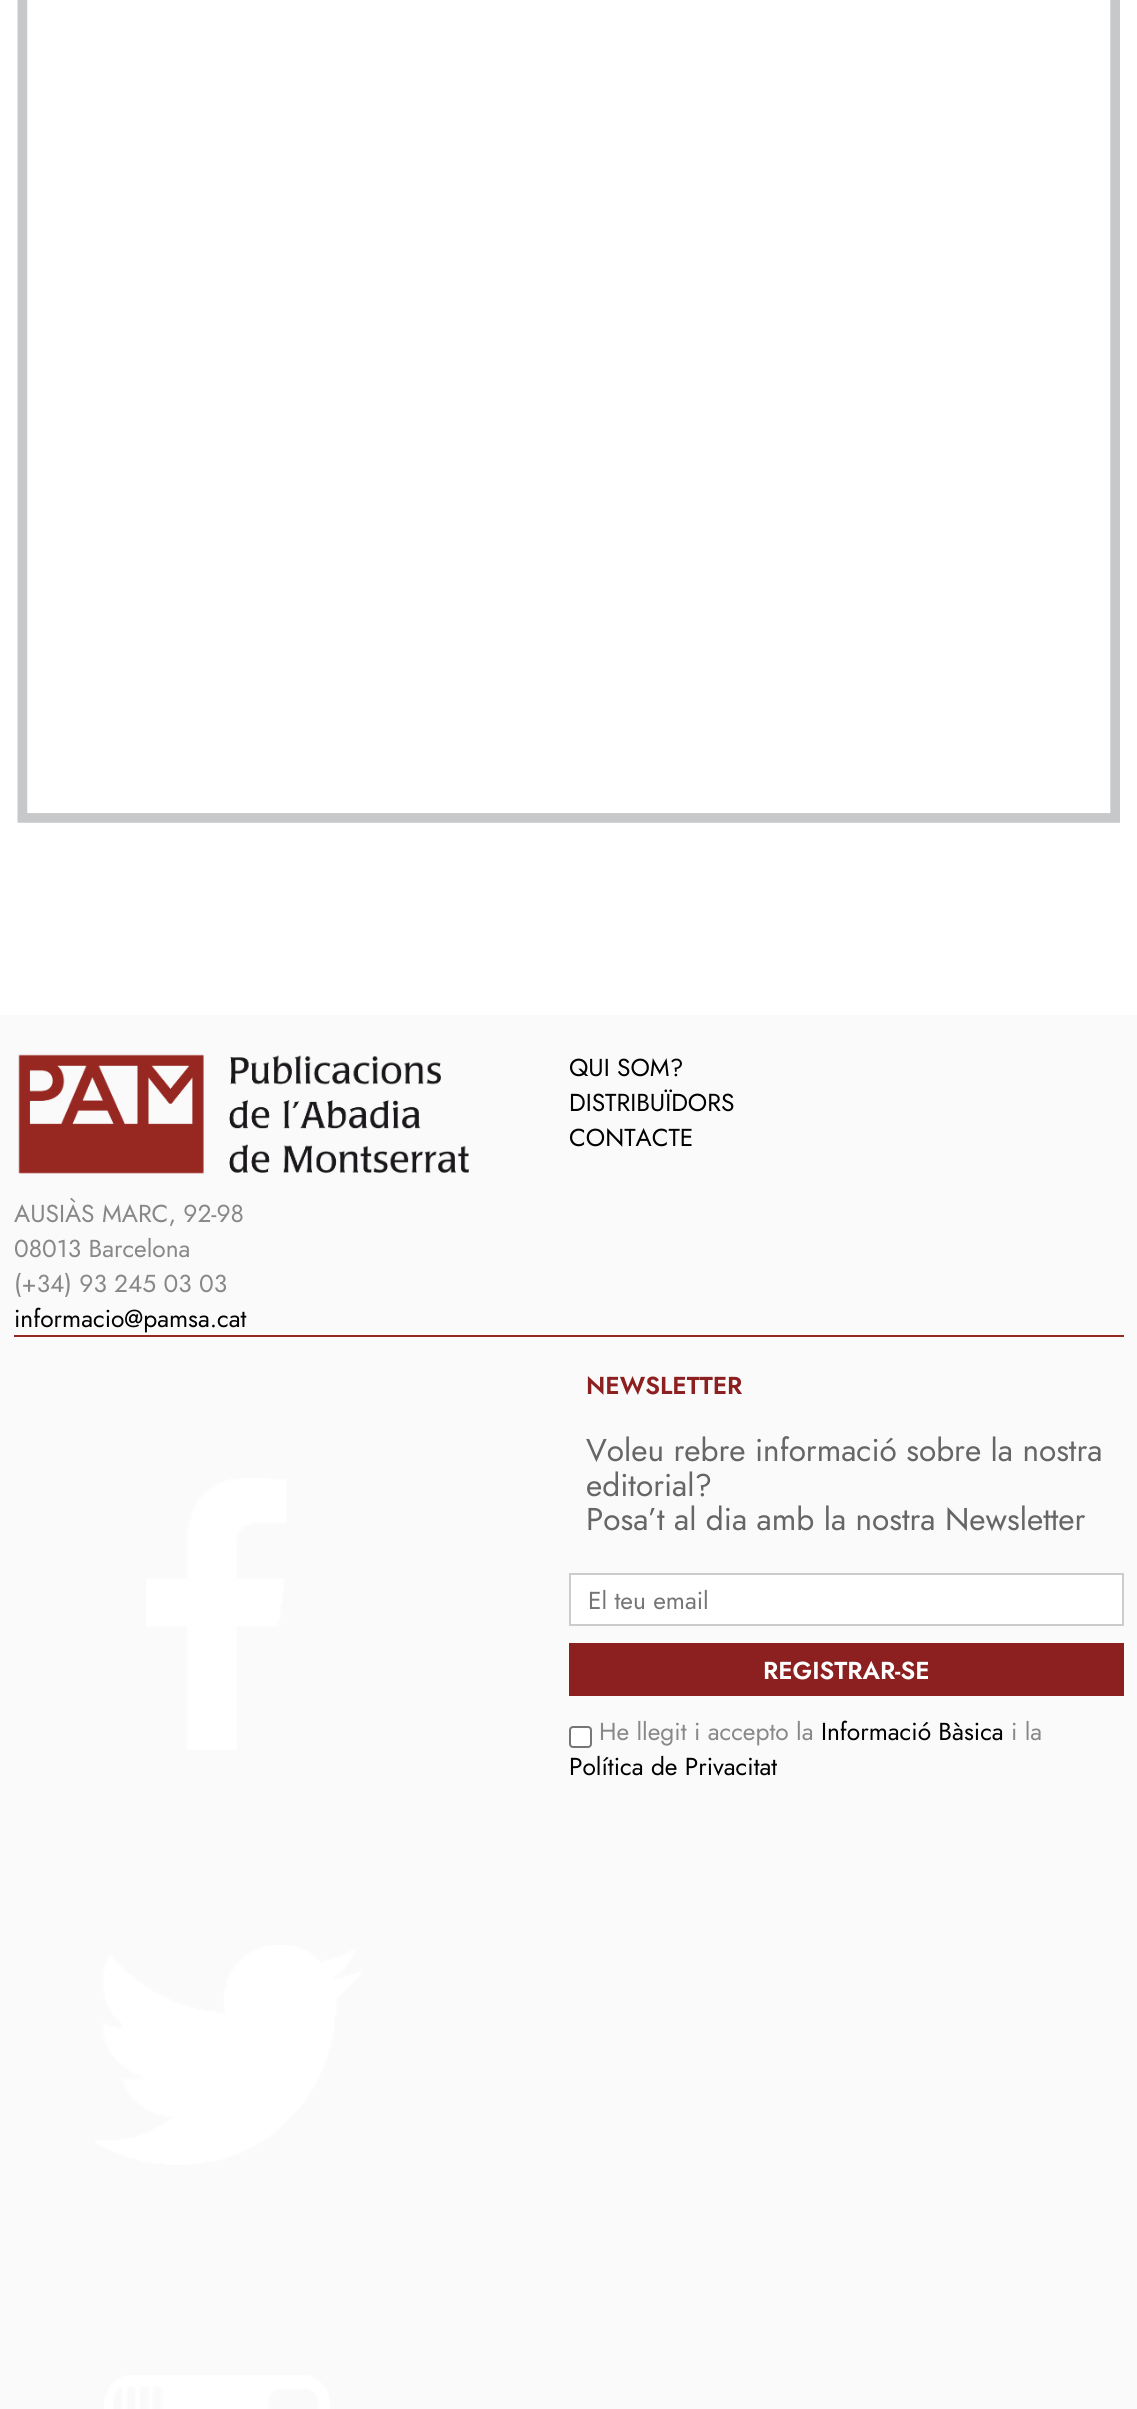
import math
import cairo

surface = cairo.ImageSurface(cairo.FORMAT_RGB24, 1137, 2409)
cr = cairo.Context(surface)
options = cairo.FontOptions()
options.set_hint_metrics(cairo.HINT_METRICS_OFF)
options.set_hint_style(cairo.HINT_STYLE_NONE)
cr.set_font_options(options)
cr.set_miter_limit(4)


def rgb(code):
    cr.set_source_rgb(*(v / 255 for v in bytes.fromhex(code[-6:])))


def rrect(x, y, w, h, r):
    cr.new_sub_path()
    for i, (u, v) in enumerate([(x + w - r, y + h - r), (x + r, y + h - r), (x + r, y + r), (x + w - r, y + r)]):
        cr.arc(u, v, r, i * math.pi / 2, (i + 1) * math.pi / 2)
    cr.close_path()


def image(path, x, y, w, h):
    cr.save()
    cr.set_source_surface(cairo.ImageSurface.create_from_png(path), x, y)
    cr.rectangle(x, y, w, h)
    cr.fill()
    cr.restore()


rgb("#ffffff")
cr.paint()
image("img/1.png", 17, 0, 1103, 823)
rgb("#fafafa")
cr.rectangle(0, 1015, 1137, 1394)
cr.fill()
rgb("#962721")
cr.rectangle(14, 1335, 1110, 2)
cr.fill()
image("img/2.png", 18, 1054, 451, 120)
image("img/3.png", 146, 1478, 141, 272)
image("img/4.png", 95, 1945, 267, 220)
image("img/5.png", 104, 2375, 226, 34)
rgb("#ffffff")
cr.rectangle(570, 1574, 553, 51)
cr.fill_preserve()
rgb("#cccccc")
cr.stroke()
rgb("#8c2020")
cr.rectangle(569, 1643, 555, 53)
cr.fill()
rgb("#ffffff")
rrect(570, 1727, 21, 20, 3)
cr.fill_preserve()
rgb("#767676")
cr.stroke()
cr.select_font_face("Jost")
cr.set_font_size(24.5)
rgb("#000000")
for x, y, s in [
    (569, 1076, "QUI SOM?"),
    (569, 1111, "DISTRIBUÏDORS"),
    (569, 1146, "CONTACTE"),
]:
    cr.move_to(x, y)
    cr.show_text(s)
rgb("#888888")
for x, y, s in [
    (14, 1222, "AUSIÀS MARC, 92-98"),
    (14, 1257, "08013 Barcelona"),
    (14, 1292, "(+34) 93 245 03 03"),
]:
    cr.move_to(x, y)
    cr.show_text(s)
rgb("#000000")
cr.move_to(14, 1327)
cr.show_text("informacio@pamsa.cat")
cr.select_font_face("Jost SemiBold")
rgb("#8c2020")
cr.move_to(586, 1394)
cr.show_text("NEWSLETTER")
cr.select_font_face("Jost")
cr.set_font_size(31.5)
rgb("#666666")
for x, y, s in [
    (586, 1461, "Voleu rebre informació sobre la nostra"),
    (586, 1496, "editorial?"),
    (586, 1530, "Posa’t al dia amb la nostra Newsletter"),
]:
    cr.move_to(x, y)
    cr.show_text(s)
cr.set_font_size(24.5)
rgb("#757575")
cr.move_to(588, 1609)
cr.show_text("El teu email")
cr.select_font_face("Jost SemiBold")
rgb("#ffffff")
cr.move_to(763, 1679)
cr.show_text("REGISTRAR-SE")
cr.select_font_face("Jost")
rgb("#888888")
cr.move_to(599, 1740)
cr.show_text("He llegit i accepto la")
rgb("#000000")
cr.move_to(821, 1740)
cr.show_text("Informació Bàsica")
rgb("#888888")
cr.move_to(1011, 1740)
cr.show_text("i la")
rgb("#000000")
cr.move_to(569, 1775)
cr.show_text("Política de Privacitat")
surface.write_to_png("page.png")
